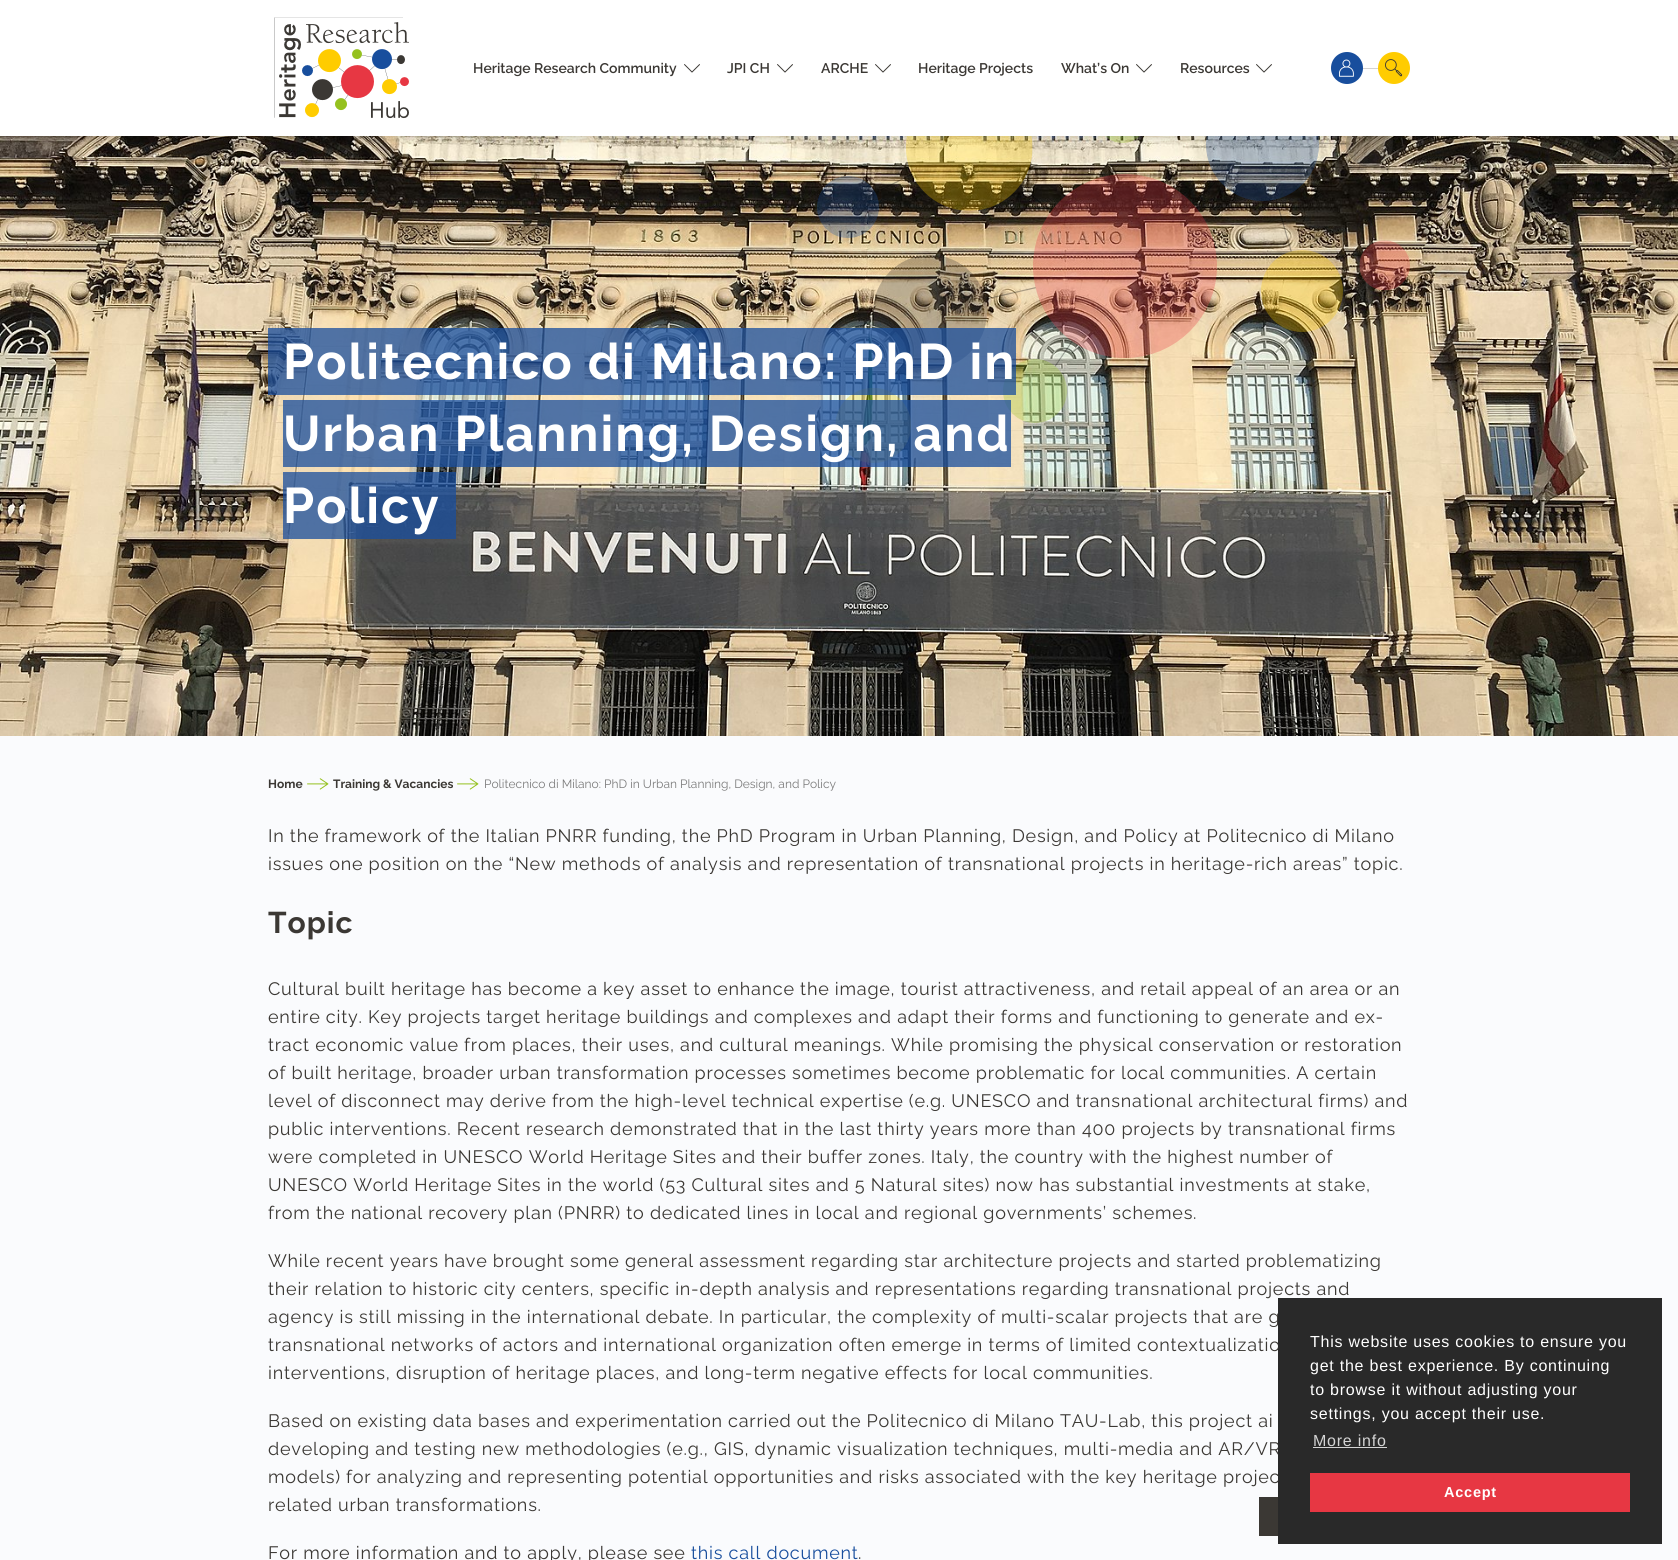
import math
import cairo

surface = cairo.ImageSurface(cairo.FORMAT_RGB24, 1678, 1560)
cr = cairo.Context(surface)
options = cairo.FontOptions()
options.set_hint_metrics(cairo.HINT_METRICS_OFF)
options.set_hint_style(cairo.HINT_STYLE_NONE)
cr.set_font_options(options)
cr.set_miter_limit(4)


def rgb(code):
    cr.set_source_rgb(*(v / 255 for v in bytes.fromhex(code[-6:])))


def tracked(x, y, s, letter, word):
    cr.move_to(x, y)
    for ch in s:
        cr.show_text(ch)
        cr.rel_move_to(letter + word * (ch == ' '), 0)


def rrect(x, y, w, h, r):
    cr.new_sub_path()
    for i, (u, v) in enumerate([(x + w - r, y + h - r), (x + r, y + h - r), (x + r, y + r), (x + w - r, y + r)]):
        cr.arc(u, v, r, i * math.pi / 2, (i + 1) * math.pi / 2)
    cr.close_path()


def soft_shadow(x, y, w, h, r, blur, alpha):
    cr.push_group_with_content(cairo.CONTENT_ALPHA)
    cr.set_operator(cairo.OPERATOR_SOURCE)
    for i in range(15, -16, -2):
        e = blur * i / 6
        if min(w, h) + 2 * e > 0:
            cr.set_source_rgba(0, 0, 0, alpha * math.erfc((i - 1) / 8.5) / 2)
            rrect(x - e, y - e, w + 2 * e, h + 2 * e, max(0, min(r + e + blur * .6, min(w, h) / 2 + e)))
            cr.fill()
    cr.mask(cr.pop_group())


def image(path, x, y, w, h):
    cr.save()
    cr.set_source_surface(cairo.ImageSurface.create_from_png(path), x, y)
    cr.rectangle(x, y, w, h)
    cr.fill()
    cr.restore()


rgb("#fafbfd")
cr.paint()
image("img/5.png", 0, 136, 1678, 600)
rgb("#000000")
soft_shadow(0, 2, 1678, 136, 0, 4, 0.2)
rgb("#ffffff")
cr.rectangle(0, 0, 1678, 136)
cr.fill()
image("img/1.png", 274, 17, 135, 102)
image("img/2.png", 684, 64, 16, 9)
image("img/2.png", 777, 64, 16, 9)
image("img/2.png", 875, 64, 16, 9)
image("img/2.png", 1136, 64, 16, 9)
image("img/2.png", 1256, 64, 16, 9)
rgb("#d4d3d3")
cr.rectangle(1362, 68, 17, 1)
cr.fill()
rgb("#184e9d")
cr.arc(1347, 68, 16, 0, 2 * math.pi)
cr.fill()
image("img/3.png", 1339, 59, 15, 18)
rgb("#ffcc01")
cr.arc(1394, 68, 16, 0, 2 * math.pi)
cr.fill()
image("img/4.png", 1385, 59, 18, 18)
image("img/6.png", 817, 136, 593, 327)
cr.set_source_rgba(0.094, 0.306, 0.616, 0.75)
cr.rectangle(268, 328, 748, 67)
cr.fill()
cr.rectangle(283, 400, 728, 67)
cr.fill()
cr.rectangle(283, 472, 173, 67)
cr.fill()
image("img/7.png", 307, 778, 22, 12)
image("img/7.png", 457, 778, 22, 12)
rgb("#3b3834")
cr.rectangle(1259, 1497, 19, 39)
cr.fill()
cr.select_font_face("Raleway SemiBold")
cr.set_font_size(14)
for x, y, s in [
    (473, 73, "Heritage Research Community"),
    (727, 73, "JPI CH"),
    (821, 73, "ARCHE"),
    (918, 73, "Heritage Projects"),
    (1061, 73, "What’s On"),
    (1180, 73, "Resources"),
]:
    cr.move_to(x, y)
    cr.show_text(s)
cr.select_font_face("Raleway", cairo.FONT_SLANT_NORMAL, cairo.FONT_WEIGHT_BOLD)
cr.set_font_size(50)
rgb("#ffffff")
for x, y, s in [
    (283, 379, "Politecnico di Milano: PhD in"),
    (283, 451, "Urban Planning, Design, and"),
    (283, 523, "Policy"),
]:
    tracked(x, y, s, 2, 0)
cr.set_font_size(12)
rgb("#3b3834")
cr.move_to(268, 788)
cr.show_text("Home")
cr.move_to(333, 788)
cr.show_text("Training & Vacancies")
cr.select_font_face("Raleway")
rgb("#7b7b7b")
cr.move_to(484, 788)
cr.show_text("Politecnico di Milano: PhD in Urban Planning, Design, and Policy")
cr.set_font_size(18)
rgb("#3b3834")
tracked(268, 842, "In the framework of the Italian PNRR funding, the PhD Program in Urban Planning, Design, and Policy at Politecnico di Milano", 0.76, 0)
tracked(268, 870, "issues one position on the “New methods of analysis and representation of transnational projects in heritage-rich areas” topic.", 0.76, 0)
cr.select_font_face("Raleway", cairo.FONT_SLANT_NORMAL, cairo.FONT_WEIGHT_BOLD)
cr.set_font_size(30)
tracked(268, 933, "Topic", 1, 0)
cr.select_font_face("Raleway")
cr.set_font_size(18)
for x, y, s in [
    (268, 995, "Cultural built heritage has become a key asset to enhance the image, tourist attractiveness, and retail appeal of an area or an"),
    (268, 1023, "entire city. Key projects target heritage buildings and complexes and adapt their forms and functioning to generate and ex-"),
    (268, 1051, "tract economic value from places, their uses, and cultural meanings. While promising the physical conservation or restoration"),
    (268, 1079, "of built heritage, broader urban transformation processes sometimes become problematic for local communities. A certain"),
    (268, 1107, "level of disconnect may derive from the high-level technical expertise (e.g. UNESCO and transnational architectural firms) and"),
    (268, 1135, "public interventions. Recent research demonstrated that in the last thirty years more than 400 projects by transnational firms"),
    (268, 1163, "were completed in UNESCO World Heritage Sites and their buffer zones. Italy, the country with the highest number of"),
    (268, 1191, "UNESCO World Heritage Sites in the world (53 Cultural sites and 5 Natural sites) now has substantial investments at stake,"),
    (268, 1219, "from the national recovery plan (PNRR) to dedicated lines in local and regional governments’ schemes."),
    (268, 1267, "While recent years have brought some general assessment regarding star architecture projects and started problematizing"),
    (268, 1295, "their relation to historic city centers, specific in-depth analysis and representations regarding transnational projects and"),
    (268, 1323, "agency is still missing in the international debate. In particular, the complexity of multi-scalar projects that are g"),
    (268, 1351, "transnational networks of actors and international organization often emerge in terms of limited contextualizatio"),
    (268, 1379, "interventions, disruption of heritage places, and long-term negative effects for local communities."),
    (268, 1427, "Based on existing data bases and experimentation carried out the Politecnico di Milano TAU-Lab, this project ai"),
    (268, 1455, "developing and testing new methodologies (e.g., GIS, dynamic visualization techniques, multi-media and AR/VR"),
    (268, 1483, "models) for analyzing and representing potential opportunities and risks associated with the key heritage projec"),
    (268, 1511, "related urban transformations."),
    (268, 1559, "For more information and to apply, please see"),
]:
    tracked(x, y, s, 0.76, 0)
rgb("#184e9d")
tracked(691, 1559, "this call document", 0.76, 0)
rgb("#3b3834")
tracked(858, 1559, ".", 0.76, 0)
rgb("#292929")
cr.rectangle(1278, 1298, 384, 246)
cr.fill()
cr.select_font_face("Liberation Sans")
cr.set_font_size(16)
rgb("#ffffff")
for x, y, s in [
    (1310, 1347, "This website uses cookies to ensure you"),
    (1310, 1371, "get the best experience. By continuing"),
    (1310, 1395, "to browse it without adjusting your"),
    (1310, 1419, "settings, you accept their use."),
]:
    tracked(x, y, s, 0.76, 0)
rgb("#d4d4d4")
tracked(1313, 1446, "More info", 0.76, 0)
cr.rectangle(1313, 1447, 74, 1)
cr.fill()
rgb("#e73743")
cr.rectangle(1310, 1473, 320, 39)
cr.fill()
cr.select_font_face("Liberation Sans", cairo.FONT_SLANT_NORMAL, cairo.FONT_WEIGHT_BOLD)
cr.set_font_size(14.5)
rgb("#ffffff")
tracked(1444, 1497, "Accept", 0.76, 0)
surface.write_to_png("page.png")
